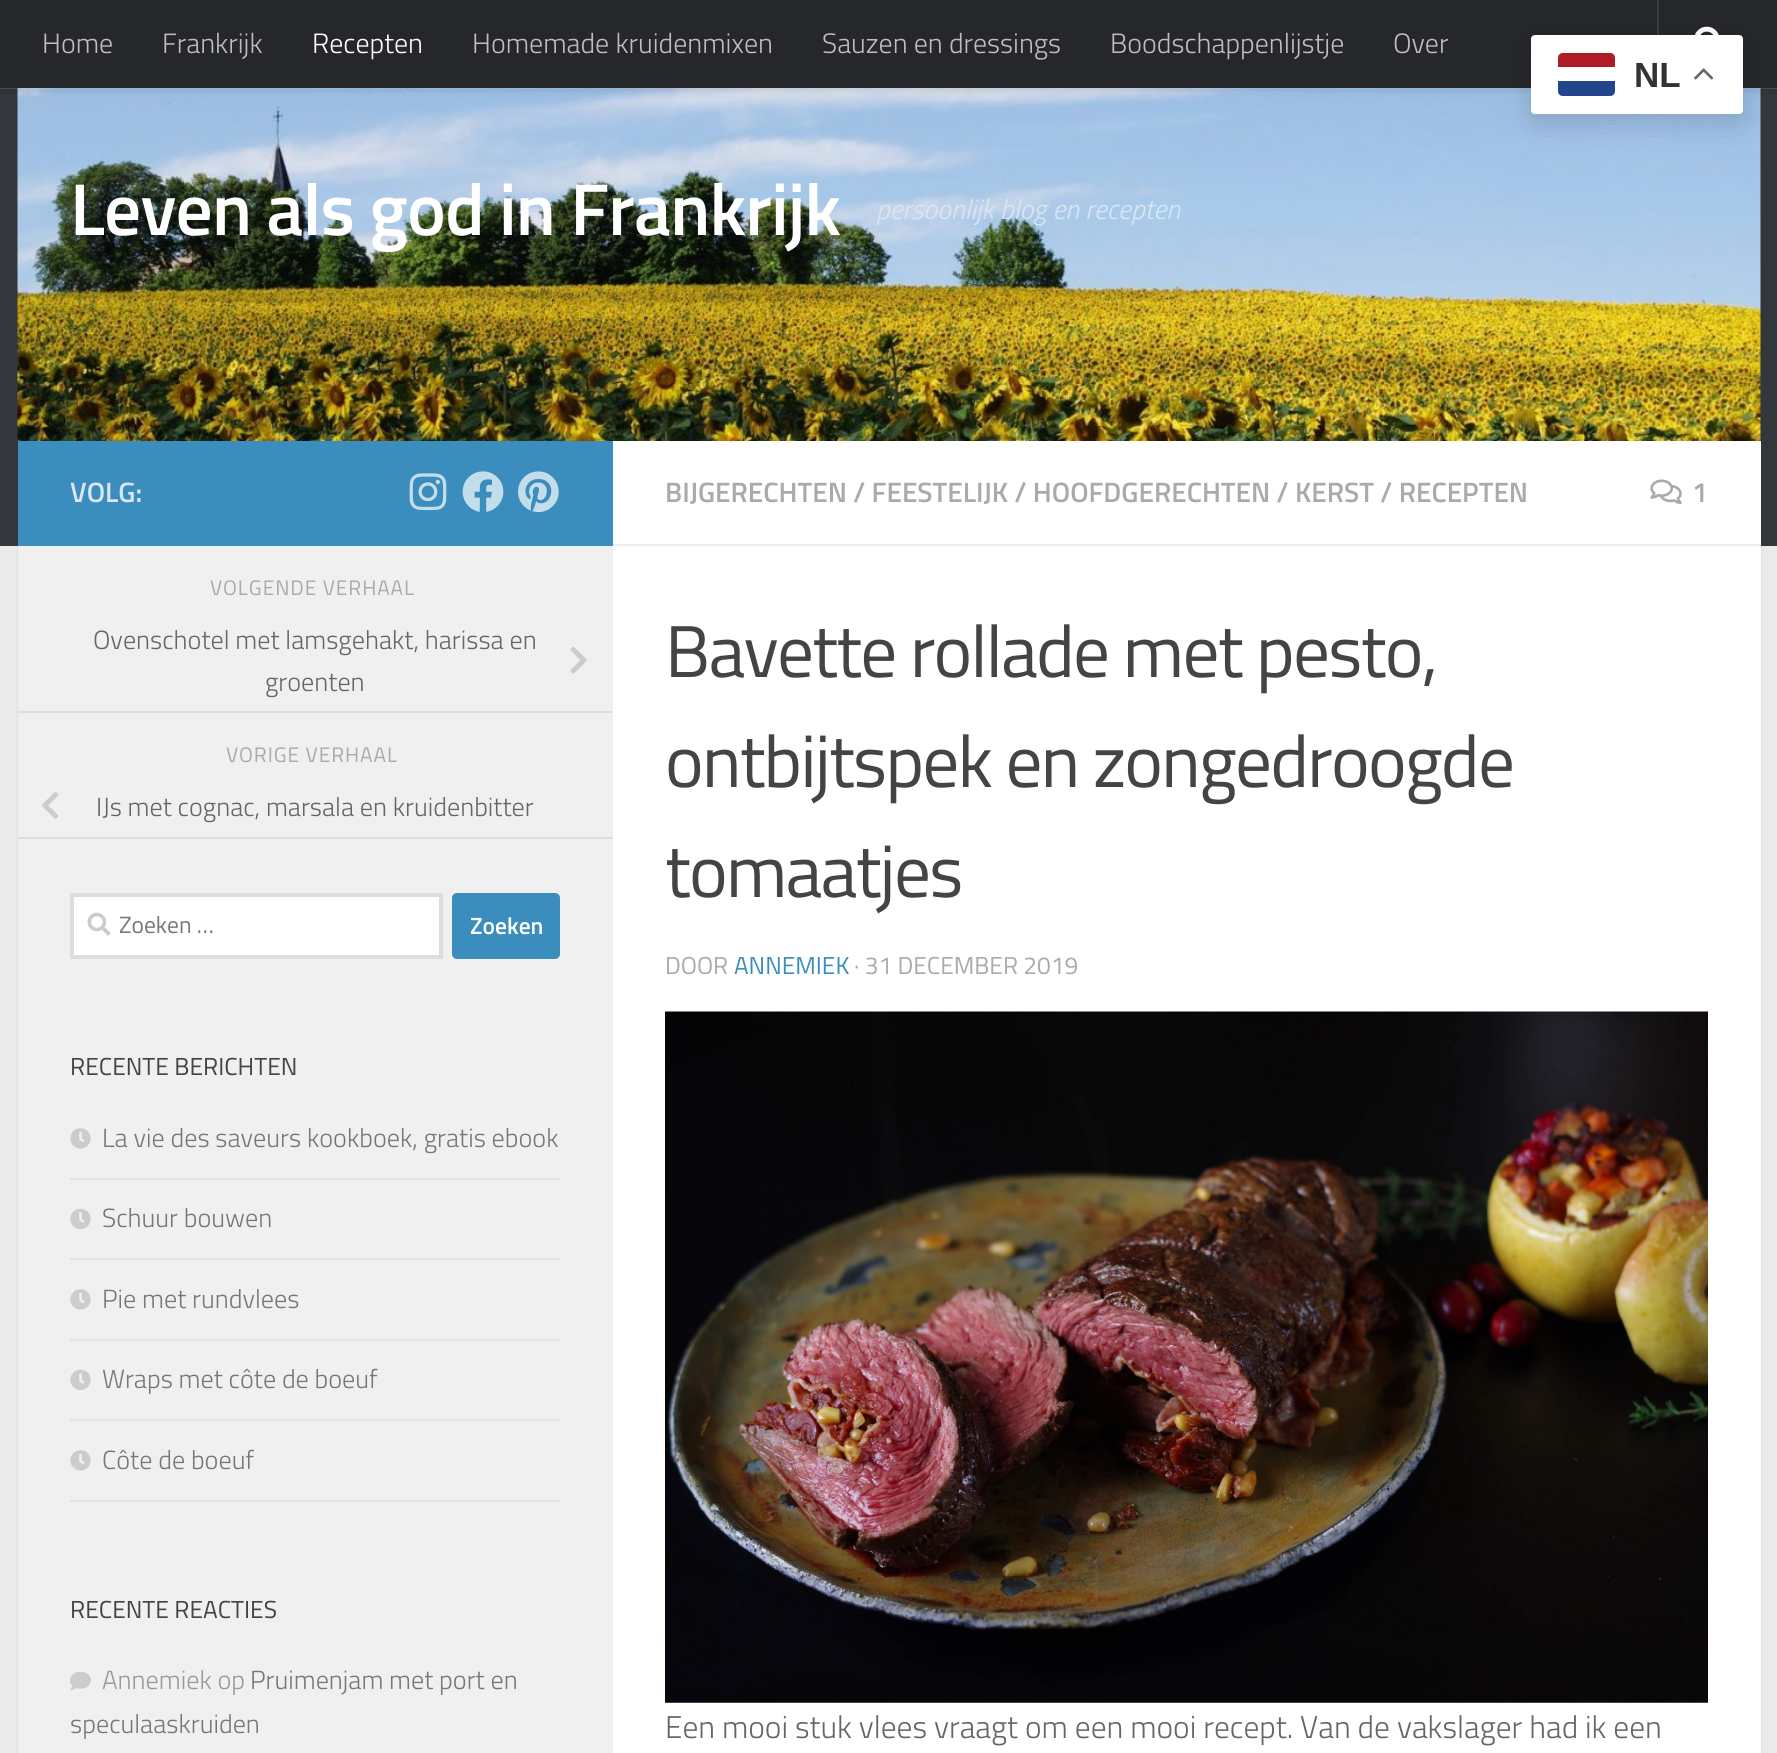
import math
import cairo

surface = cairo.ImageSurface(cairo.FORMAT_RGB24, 1777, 1753)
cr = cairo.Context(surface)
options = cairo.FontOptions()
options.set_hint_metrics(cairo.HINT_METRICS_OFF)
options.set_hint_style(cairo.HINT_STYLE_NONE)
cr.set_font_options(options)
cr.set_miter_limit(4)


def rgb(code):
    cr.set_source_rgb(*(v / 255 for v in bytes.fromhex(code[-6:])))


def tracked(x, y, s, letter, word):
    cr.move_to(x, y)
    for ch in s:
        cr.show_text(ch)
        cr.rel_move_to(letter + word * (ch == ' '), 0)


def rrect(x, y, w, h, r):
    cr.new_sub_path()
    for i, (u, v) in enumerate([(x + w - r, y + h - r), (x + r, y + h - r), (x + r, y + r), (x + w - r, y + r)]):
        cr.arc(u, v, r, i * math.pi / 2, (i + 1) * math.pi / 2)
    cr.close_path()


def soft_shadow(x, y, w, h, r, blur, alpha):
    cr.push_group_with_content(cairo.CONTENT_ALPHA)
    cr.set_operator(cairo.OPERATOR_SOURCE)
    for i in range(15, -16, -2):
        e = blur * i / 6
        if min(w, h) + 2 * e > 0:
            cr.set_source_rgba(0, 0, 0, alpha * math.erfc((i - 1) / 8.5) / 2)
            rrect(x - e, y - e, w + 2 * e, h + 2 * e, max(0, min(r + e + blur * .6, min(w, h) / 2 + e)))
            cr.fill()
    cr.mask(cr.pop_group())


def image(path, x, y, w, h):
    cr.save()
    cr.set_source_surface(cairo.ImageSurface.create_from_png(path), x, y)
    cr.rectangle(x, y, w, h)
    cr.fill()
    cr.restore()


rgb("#eaeaea")
cr.paint()
rgb("#000000")
soft_shadow(18, 443, 1743, 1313, 0, 1, 0.1)
rgb("#33363b")
cr.rectangle(0, 88, 1777, 458)
cr.fill()
image("img/2.png", 17, 88, 1744, 353)
cr.set_source_rgba(1, 1, 1, 0.15)
cr.rectangle(0, 88, 1777, 1)
cr.fill()
rgb("#000000")
soft_shadow(0, 0, 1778, 88, 0, 4.5, 0.2)
rgb("#26272b")
cr.rectangle(0, 0, 1777, 88)
cr.fill()
rgb("#3c3d40")
cr.new_path()
cr.move_to(1657, 0)
cr.line_to(1657, 88)
cr.line_to(1759, 88)
cr.line_to(1659, 88)
cr.line_to(1659, 0)
cr.close_path()
cr.fill()
image("img/1.png", 1694, 26, 25, 9)
rgb("#ffffff")
cr.rectangle(613, 441, 1148, 1312)
cr.fill()
rgb("#3b8dbd")
cr.rectangle(18, 441, 595, 105)
cr.fill()
image("img/3.png", 409, 473, 38, 38)
image("img/4.png", 462, 471, 42, 41)
image("img/5.png", 518, 471, 41, 42)
rgb("#f0f0f0")
cr.rectangle(18, 546, 595, 1207)
cr.fill()
rgb("#dddddd")
cr.rectangle(18, 711, 595, 2)
cr.fill()
image("img/6.png", 570, 646, 17, 28)
cr.rectangle(18, 837, 595, 2)
cr.fill()
image("img/7.png", 42, 792, 17, 27)
rgb("#ffffff")
cr.rectangle(72, 895, 369, 62)
cr.fill_preserve()
rgb("#dddddd")
cr.set_line_width(4)
cr.stroke()
image("img/8.png", 87, 912, 24, 24)
rgb("#3b8dbd")
rrect(452, 893, 108, 66, 5)
cr.fill()
rgb("#e4e4e4")
cr.rectangle(70, 1178, 490, 2)
cr.fill()
image("img/9.png", 70, 1128, 21, 21)
cr.rectangle(70, 1258, 490, 2)
cr.fill()
image("img/10.png", 70, 1208, 21, 21)
cr.rectangle(70, 1339, 490, 2)
cr.fill()
image("img/9.png", 70, 1289, 21, 21)
cr.rectangle(70, 1419, 490, 2)
cr.fill()
image("img/10.png", 70, 1369, 21, 21)
cr.rectangle(70, 1500, 490, 2)
cr.fill()
image("img/9.png", 70, 1450, 21, 21)
image("img/11.png", 70, 1671, 21, 19)
rgb("#eeeeee")
cr.rectangle(613, 544, 1148, 2)
cr.fill()
image("img/12.png", 1650, 479, 32, 25)
image("img/13.png", 665, 1011, 1043, 692)
rgb("#000000")
soft_shadow(1531, 44, 212, 79, 4, 13, 0.15)
rgb("#ffffff")
rrect(1531, 35, 212, 79, 4)
cr.fill()
rgb("#21468b")
cr.new_path()
cr.move_to(1558, 81)
cr.line_to(1615, 81)
cr.line_to(1615, 91)
cr.curve_to(1615, 94, 1613, 96, 1610, 96)
cr.line_to(1563, 96)
cr.curve_to(1560, 96, 1558, 94, 1558, 91)
cr.close_path()
cr.fill()
rgb("#ae1c28")
cr.new_path()
cr.move_to(1563, 53)
cr.line_to(1610, 53)
cr.curve_to(1613, 53, 1615, 55, 1615, 58)
cr.line_to(1615, 67)
cr.line_to(1558, 67)
cr.line_to(1558, 58)
cr.curve_to(1558, 55, 1560, 53, 1563, 53)
cr.close_path()
cr.fill()
image("img/14.png", 1694, 68, 19, 12)
cr.select_font_face("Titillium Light")
cr.set_font_size(28)
rgb("#bebebf")
cr.move_to(42, 53)
cr.show_text("Home")
cr.move_to(162, 53)
cr.show_text("Frankrijk")
rgb("#ffffff")
cr.move_to(312, 53)
cr.show_text("Recepten")
rgb("#bebebf")
for x, y, s in [
    (472, 53, "Homemade kruidenmixen"),
    (822, 53, "Sauzen en dressings"),
    (1110, 53, "Boodschappenlijstje"),
    (1393, 53, "Over"),
]:
    cr.move_to(x, y)
    cr.show_text(s)
cr.select_font_face("Titillium SemiBold")
cr.set_font_size(73.5)
rgb("#ffffff")
tracked(70, 235, "Leven als god in Frankrijk", -0.9, 0)
cr.select_font_face("Titillium Light", cairo.FONT_SLANT_ITALIC)
cr.set_font_size(28)
rgb("#d9e6f4")
cr.move_to(876, 219)
cr.show_text("persoonlijk blog en recepten")
cr.select_font_face("Titillium SemiBold")
cr.move_to(70, 502)
cr.show_text("VOLG:")
cr.select_font_face("Titillium")
cr.set_font_size(21)
rgb("#aaaaaa")
tracked(210, 595, "VOLGENDE VERHAAL", 0.9, 0)
cr.select_font_face("Titillium Light")
cr.set_font_size(26.25)
rgb("#666666")
cr.move_to(93, 649)
cr.show_text("Ovenschotel met lamsgehakt, harissa en")
cr.move_to(265, 691)
cr.show_text("groenten")
cr.select_font_face("Titillium")
cr.set_font_size(21)
rgb("#aaaaaa")
tracked(226, 762, "VORIGE VERHAAL", 0.9, 0)
cr.select_font_face("Titillium Light")
cr.set_font_size(26.25)
rgb("#666666")
cr.move_to(96, 816)
cr.show_text("IJs met cognac, marsala en kruidenbitter")
cr.select_font_face("Titillium")
cr.set_font_size(23.5)
rgb("#777777")
cr.move_to(119, 933)
cr.show_text("Zoeken …")
cr.select_font_face("Titillium SemiBold")
rgb("#ffffff")
cr.move_to(470, 934)
cr.show_text("Zoeken")
cr.select_font_face("Titillium")
cr.set_font_size(24.6)
rgb("#444444")
cr.move_to(70, 1075)
cr.show_text("RECENTE BERICHTEN")
cr.select_font_face("Titillium Light")
cr.set_font_size(26.25)
rgb("#777777")
for x, y, s in [
    (102, 1147, "La vie des saveurs kookboek, gratis ebook"),
    (102, 1227, "Schuur bouwen"),
    (102, 1308, "Pie met rundvlees"),
    (102, 1388, "Wraps met côte de boeuf"),
    (102, 1469, "Côte de boeuf"),
]:
    cr.move_to(x, y)
    cr.show_text(s)
cr.select_font_face("Titillium")
cr.set_font_size(24.6)
rgb("#444444")
cr.move_to(70, 1618)
cr.show_text("RECENTE REACTIES")
cr.select_font_face("Titillium Light")
cr.set_font_size(26.25)
rgb("#999999")
cr.move_to(102, 1689)
cr.show_text("Annemiek op")
rgb("#777777")
cr.move_to(250, 1689)
cr.show_text("Pruimenjam met port en")
cr.move_to(70, 1733)
cr.show_text("speculaaskruiden")
cr.select_font_face("Titillium SemiBold")
cr.set_font_size(28)
rgb("#aaaaaa")
cr.move_to(665, 502)
cr.show_text("BIJGERECHTEN / FEESTELIJK / HOOFDGERECHTEN / KERST / RECEPTEN")
cr.move_to(1692, 502)
cr.show_text("1")
cr.select_font_face("Titillium")
cr.set_font_size(73.4)
rgb("#444444")
for x, y, s in [
    (665, 677, "Bavette rollade met pesto,"),
    (665, 787, "ontbijtspek en zongedroogde"),
    (665, 897, "tomaatjes"),
]:
    tracked(x, y, s, -1.75, 0)
cr.set_font_size(24.5)
rgb("#aaaaaa")
cr.move_to(665, 974)
cr.show_text("DOOR")
rgb("#3b8dbd")
cr.move_to(734, 974)
cr.show_text("ANNEMIEK")
rgb("#aaaaaa")
cr.move_to(854, 974)
cr.show_text("· 31 DECEMBER 2019")
cr.select_font_face("Titillium Light")
cr.set_font_size(31.5)
rgb("#666666")
cr.move_to(665, 1738)
cr.show_text("Een mooi stuk vlees vraagt om een mooi recept. Van de vakslager had ik een")
cr.select_font_face("Liberation Sans", cairo.FONT_SLANT_NORMAL, cairo.FONT_WEIGHT_BOLD)
cr.set_font_size(35)
rgb("#333333")
cr.move_to(1634, 87)
cr.show_text("NL")
surface.write_to_png("page.png")
